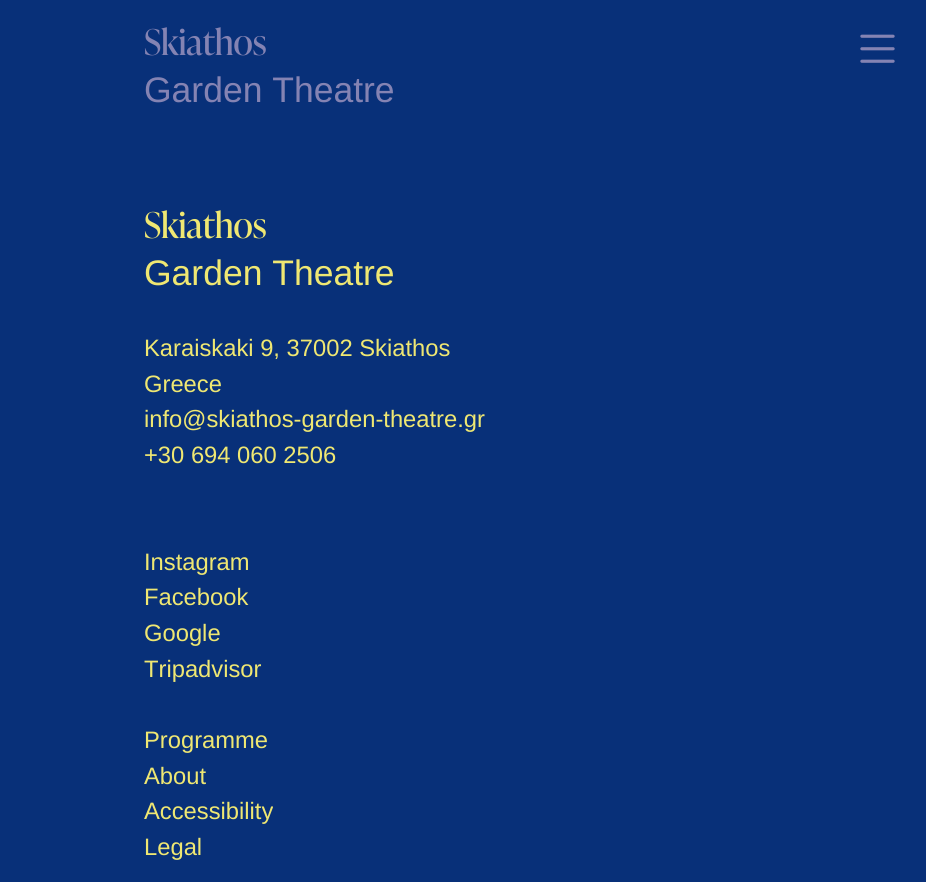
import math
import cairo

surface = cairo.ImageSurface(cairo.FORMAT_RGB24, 926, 882)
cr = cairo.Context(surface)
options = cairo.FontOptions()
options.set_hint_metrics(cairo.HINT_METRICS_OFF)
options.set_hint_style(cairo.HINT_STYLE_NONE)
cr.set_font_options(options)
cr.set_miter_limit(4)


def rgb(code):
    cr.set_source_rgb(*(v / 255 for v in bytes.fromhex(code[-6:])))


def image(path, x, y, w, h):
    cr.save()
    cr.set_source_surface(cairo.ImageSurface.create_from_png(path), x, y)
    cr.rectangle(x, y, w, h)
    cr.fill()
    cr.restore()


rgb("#083079")
cr.paint()
image("img/1.png", 860, 34, 35, 29)
cr.select_font_face("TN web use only")
cr.set_font_size(35.5)
rgb("#8483b3")
cr.move_to(144, 55)
cr.show_text("Skiathos")
cr.select_font_face("Liberation Sans")
cr.move_to(144, 102)
cr.show_text("Garden Theatre")
cr.select_font_face("TN web use only")
rgb("#efe772")
cr.move_to(144, 238)
cr.show_text("Skiathos")
cr.select_font_face("Liberation Sans")
cr.move_to(144, 285)
cr.show_text("Garden Theatre")
cr.set_font_size(23.75)
for x, y, s in [
    (144, 356, "Karaiskaki 9, 37002 Skiathos"),
    (144, 392, "Greece"),
    (144, 427, "info@skiathos-garden-theatre.gr"),
    (144, 463, "+30 694 060 2506"),
    (144, 570, "Instagram"),
    (144, 605, "Facebook"),
    (144, 641, "Google"),
    (144, 677, "Tripadvisor"),
    (144, 748, "Programme"),
    (144, 784, "About"),
    (144, 819, "Accessibility"),
    (144, 855, "Legal"),
]:
    cr.move_to(x, y)
    cr.show_text(s)
surface.write_to_png("page.png")
